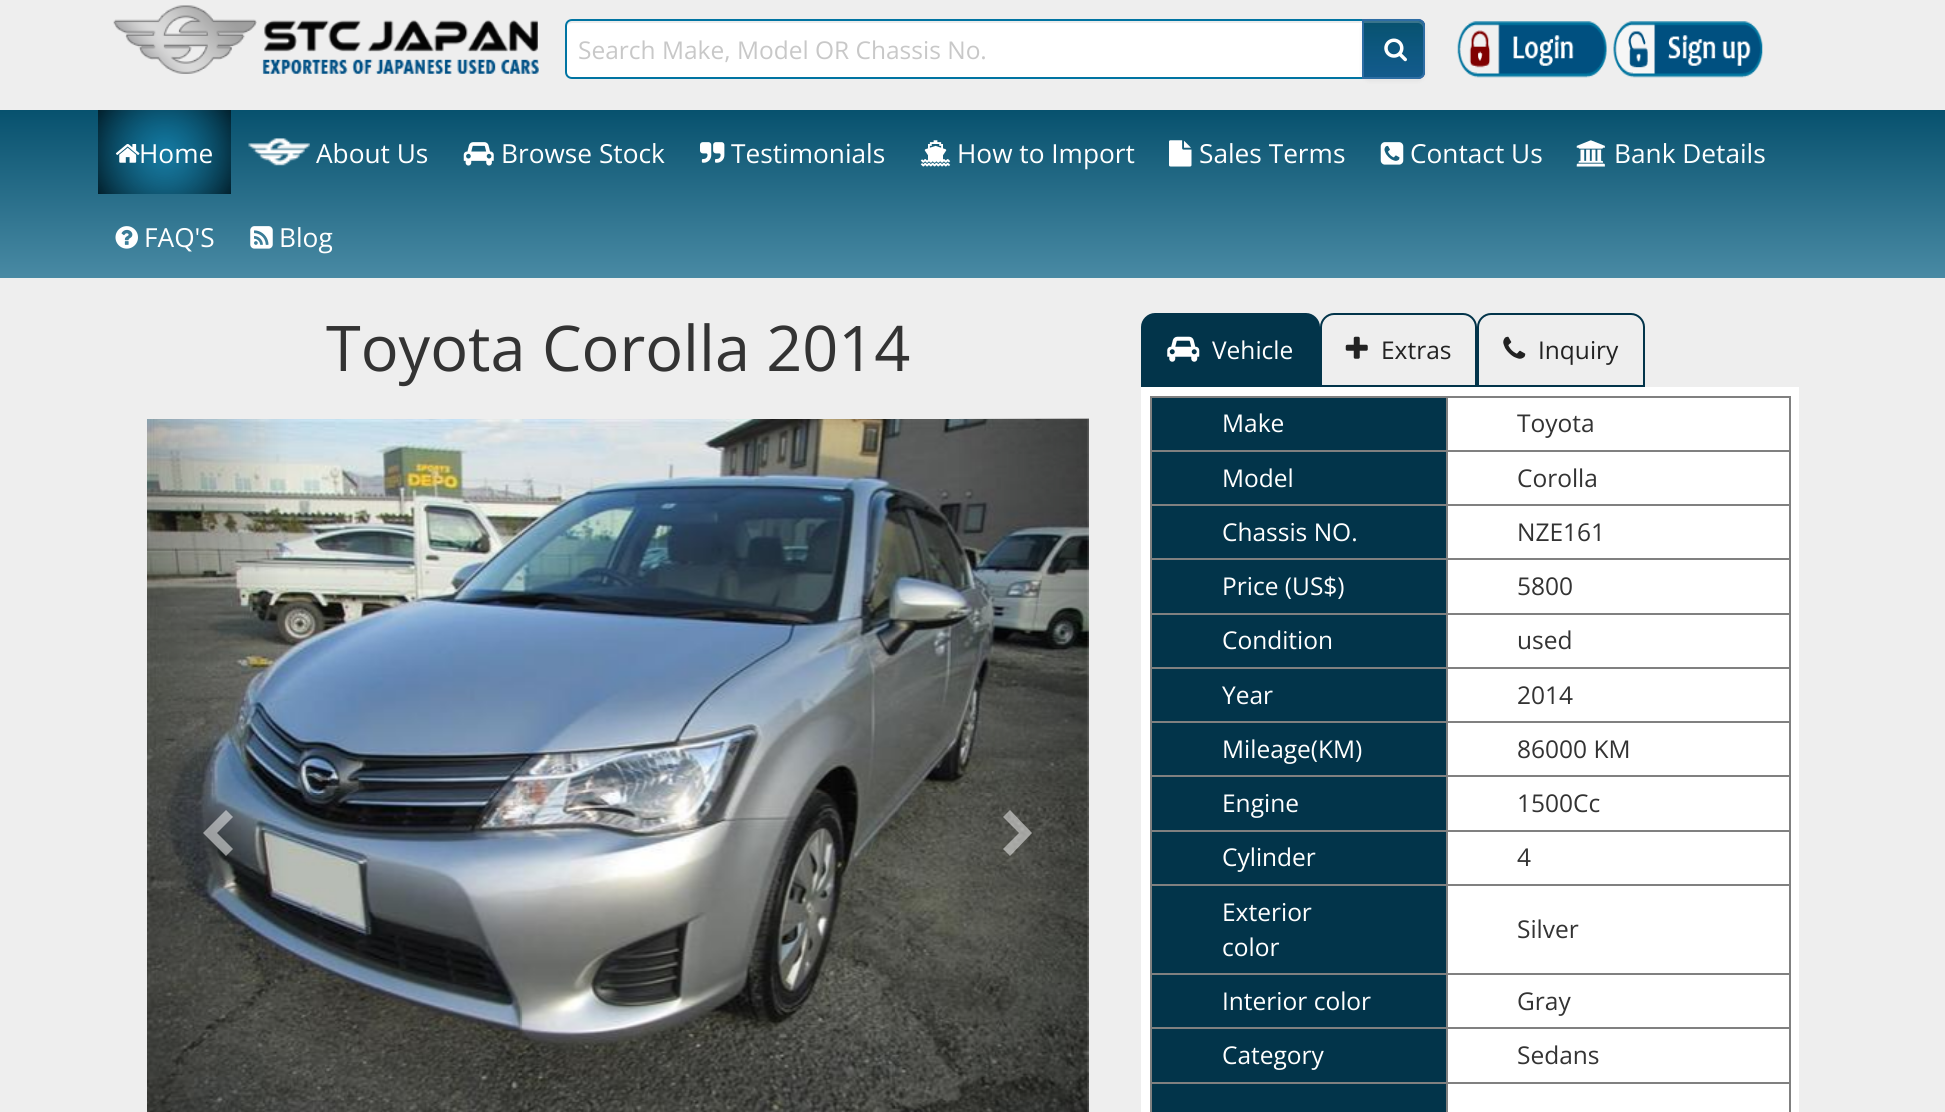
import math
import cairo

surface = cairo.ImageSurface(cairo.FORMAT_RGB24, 1945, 1112)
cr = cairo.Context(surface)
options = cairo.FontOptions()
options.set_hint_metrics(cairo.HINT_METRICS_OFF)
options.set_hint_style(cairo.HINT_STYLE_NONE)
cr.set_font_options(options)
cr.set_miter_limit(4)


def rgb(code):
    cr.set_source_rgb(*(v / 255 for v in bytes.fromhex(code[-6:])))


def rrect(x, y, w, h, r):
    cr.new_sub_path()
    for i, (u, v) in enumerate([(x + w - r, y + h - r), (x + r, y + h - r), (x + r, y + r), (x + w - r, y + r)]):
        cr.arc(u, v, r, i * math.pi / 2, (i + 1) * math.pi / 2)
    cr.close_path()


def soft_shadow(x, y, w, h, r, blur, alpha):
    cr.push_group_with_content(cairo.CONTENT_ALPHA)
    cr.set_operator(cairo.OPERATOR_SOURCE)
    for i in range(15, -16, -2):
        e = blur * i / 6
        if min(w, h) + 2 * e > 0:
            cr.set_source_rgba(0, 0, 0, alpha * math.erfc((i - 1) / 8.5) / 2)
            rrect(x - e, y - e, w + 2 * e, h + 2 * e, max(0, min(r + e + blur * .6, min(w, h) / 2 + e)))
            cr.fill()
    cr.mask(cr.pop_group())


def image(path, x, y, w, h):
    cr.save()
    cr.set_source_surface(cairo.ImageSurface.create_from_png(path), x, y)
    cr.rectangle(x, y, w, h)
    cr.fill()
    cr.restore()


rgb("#eeeeee")
cr.paint()
image("img/1.png", 113, 5, 426, 69)
rgb("#ffffff")
cr.new_path()
cr.move_to(572, 19)
cr.line_to(1367, 19)
cr.line_to(1367, 79)
cr.line_to(572, 79)
cr.curve_to(568, 79, 565, 76, 565, 72)
cr.line_to(565, 26)
cr.curve_to(565, 22, 568, 19, 572, 19)
cr.close_path()
cr.fill()
rgb("#ececec")
cr.new_path()
cr.move_to(572, 23)
cr.line_to(1365, 23)
cr.line_to(1365, 21)
cr.line_to(572, 21)
cr.curve_to(568, 21, 567, 25, 567, 28)
cr.curve_to(567, 25, 569, 23, 572, 23)
cr.close_path()
cr.fill()
cr.new_path()
cr.move_to(572, 20)
cr.line_to(1366, 20)
cr.line_to(1366, 78)
cr.line_to(572, 78)
cr.curve_to(568.5, 78, 566, 75.5, 566, 72)
cr.line_to(566, 26)
cr.curve_to(566, 22.5, 568.5, 20, 572, 20)
cr.close_path()
rgb("#0074a2")
cr.stroke()
rgb("#000000")
soft_shadow(1362, 21, 63, 60, 7, 2, 0.05)
rgb("#32489d")
cr.new_path()
cr.move_to(1362, 19)
cr.line_to(1418, 19)
cr.curve_to(1422, 19, 1425, 22, 1425, 26)
cr.line_to(1425, 72)
cr.curve_to(1425, 76, 1422, 79, 1418, 79)
cr.line_to(1362, 79)
cr.close_path()
cr.fill()
cr.save()
cr.new_path()
cr.move_to(1362, 19)
cr.line_to(1418, 19)
cr.curve_to(1422, 19, 1425, 22, 1425, 26)
cr.line_to(1425, 72)
cr.curve_to(1425, 76, 1422, 79, 1418, 79)
cr.line_to(1362, 79)
cr.close_path()
cr.clip()
gradient = cairo.LinearGradient(1393, 21, 1393, 77)
gradient.add_color_stop_rgba(0, 0.027, 0.318, 0.431, 1)
gradient.add_color_stop_rgba(1, 0.027, 0.384, 0.525, 0.71)
cr.set_source(gradient)
cr.rectangle(1364, 21, 61, 56)
cr.fill()
cr.restore()
rgb("#39748c")
cr.new_path()
cr.move_to(1363, 23)
cr.line_to(1418, 23)
cr.curve_to(1420, 23, 1423, 25, 1423, 28)
cr.line_to(1423, 26)
cr.curve_to(1423, 23, 1421, 21, 1418, 21)
cr.line_to(1363, 21)
cr.close_path()
cr.fill()
cr.new_path()
cr.move_to(1363, 20)
cr.line_to(1418, 20)
cr.curve_to(1421.5, 20, 1424, 22.5, 1424, 26)
cr.line_to(1424, 72)
cr.curve_to(1424, 75.5, 1421.5, 78, 1418, 78)
cr.line_to(1363, 78)
cr.close_path()
rgb("#2e6da4")
cr.stroke()
image("img/2.png", 1384, 38, 23, 24)
image("img/3.png", 1457, 21, 150, 57)
image("img/4.png", 1613, 21, 150, 57)
gradient = cairo.LinearGradient(973, 110, 973, 278)
gradient.add_color_stop_rgba(0, 0.027, 0.318, 0.431, 1)
gradient.add_color_stop_rgba(1, 0.286, 0.541, 0.643, 1)
cr.set_source(gradient)
cr.rectangle(0, 110, 1945, 168)
cr.fill()
gradient = cairo.RadialGradient(165, 152, 0, 165, 152, 79)
gradient.add_color_stop_rgba(0, 0.075, 0.553, 0.741, 0.58)
gradient.add_color_stop_rgba(1, 0.008, 0.122, 0.169, 1)
cr.set_source(gradient)
cr.rectangle(98, 110, 133, 84)
cr.fill()
image("img/5.png", 115, 144, 25, 19)
image("img/6.png", 248, 138, 62, 28)
image("img/7.png", 463, 142, 31, 24)
image("img/8.png", 700, 142, 25, 21)
image("img/9.png", 920, 140, 31, 27)
image("img/10.png", 1169, 140, 23, 27)
image("img/11.png", 1380, 142, 24, 23)
image("img/12.png", 1576, 140, 29, 27)
image("img/13.png", 115, 226, 23, 23)
image("img/14.png", 250, 226, 23, 23)
image("img/15.png", 147, 419, 942, 693)
cr.set_source_rgba(1, 1, 1, 0.5)
cr.new_path()
cr.move_to(203, 833)
cr.line_to(226, 810)
cr.line_to(233, 817)
cr.line_to(217, 833)
cr.line_to(233, 849)
cr.line_to(226, 856)
cr.close_path()
cr.fill()
gradient = cairo.LinearGradient(947, 844, 1089, 844)
gradient.add_color_stop_rgba(0, 0, 0, 0, 0)
gradient.add_color_stop_rgba(1, 0, 0, 0, 0.25)
cr.set_source(gradient)
cr.rectangle(959, 418, 130, 694)
cr.fill()
cr.set_source_rgba(1, 1, 1, 0.5)
cr.new_path()
cr.move_to(1003, 849)
cr.line_to(1019, 833)
cr.line_to(1003, 817)
cr.line_to(1010, 810)
cr.line_to(1032, 833)
cr.line_to(1010, 856)
cr.close_path()
cr.fill()
rgb("#02344a")
cr.new_path()
cr.move_to(1155, 314)
cr.line_to(1306, 314)
cr.curve_to(1313, 314, 1319, 320, 1319, 327)
cr.line_to(1319, 386)
cr.line_to(1142, 386)
cr.line_to(1142, 327)
cr.curve_to(1142, 320, 1148, 314, 1155, 314)
cr.close_path()
cr.fill_preserve()
cr.stroke()
image("img/16.png", 1167, 336, 33, 26)
cr.new_path()
cr.move_to(1334, 314)
cr.line_to(1463, 314)
cr.curve_to(1470, 314, 1476, 320, 1476, 327)
cr.line_to(1476, 386)
cr.line_to(1321, 386)
cr.line_to(1321, 327)
cr.curve_to(1321, 320, 1327, 314, 1334, 314)
cr.close_path()
cr.stroke()
image("img/17.png", 1345, 336, 23, 23)
cr.new_path()
cr.move_to(1491, 314)
cr.line_to(1631, 314)
cr.curve_to(1638, 314, 1644, 320, 1644, 327)
cr.line_to(1644, 386)
cr.line_to(1478, 386)
cr.line_to(1478, 327)
cr.curve_to(1478, 320, 1484, 314, 1491, 314)
cr.close_path()
cr.stroke()
image("img/18.png", 1503, 336, 23, 23)
for x, y, w, h, color in [
    (1141, 387, 658, 725, "#ffffff"),
    (1150, 396, 640, 2, "#808080"),
    (1789, 396, 2, 716, "#808080"),
    (1150, 396, 2, 716, "#808080"),
    (1152, 398, 294, 52, "#02344a"),
    (1446, 450, 344, 2, "#808080"),
    (1446, 504, 344, 2, "#808080"),
    (1446, 558, 344, 2, "#808080"),
    (1446, 613, 344, 2, "#808080"),
    (1446, 667, 344, 2, "#808080"),
    (1446, 721, 344, 2, "#808080"),
    (1446, 775, 344, 2, "#808080"),
    (1446, 830, 344, 2, "#808080"),
    (1446, 884, 344, 2, "#808080"),
    (1446, 973, 344, 2, "#808080"),
    (1446, 1027, 344, 2, "#808080"),
    (1446, 1082, 344, 2, "#808080"),
    (1446, 1082, 2, 30, "#808080"),
    (1150, 1082, 297, 2, "#808080"),
    (1446, 1027, 2, 56, "#808080"),
    (1150, 1027, 297, 2, "#808080"),
    (1446, 973, 2, 56, "#808080"),
    (1150, 973, 297, 2, "#808080"),
    (1446, 884, 2, 91, "#808080"),
    (1150, 884, 297, 2, "#808080"),
    (1446, 830, 2, 56, "#808080"),
    (1150, 830, 297, 2, "#808080"),
    (1446, 775, 2, 56, "#808080"),
    (1150, 775, 297, 2, "#808080"),
    (1446, 721, 2, 56, "#808080"),
    (1150, 721, 297, 2, "#808080"),
    (1446, 667, 2, 56, "#808080"),
    (1150, 667, 297, 2, "#808080"),
    (1446, 613, 2, 56, "#808080"),
    (1150, 613, 297, 2, "#808080"),
    (1446, 558, 2, 56, "#808080"),
    (1150, 558, 297, 2, "#808080"),
    (1446, 504, 2, 56, "#808080"),
    (1150, 504, 297, 2, "#808080"),
    (1446, 450, 2, 56, "#808080"),
    (1150, 450, 297, 2, "#808080"),
    (1446, 396, 2, 56, "#808080"),
    (1152, 452, 294, 52, "#02344a"),
    (1152, 506, 294, 52, "#02344a"),
    (1152, 560, 294, 53, "#02344a"),
    (1152, 615, 294, 52, "#02344a"),
    (1152, 669, 294, 52, "#02344a"),
    (1152, 723, 294, 52, "#02344a"),
    (1152, 777, 294, 53, "#02344a"),
    (1152, 832, 294, 52, "#02344a"),
    (1152, 886, 294, 87, "#02344a"),
    (1152, 975, 294, 52, "#02344a"),
    (1152, 1029, 294, 53, "#02344a"),
    (1152, 1084, 294, 28, "#02344a"),
]:
    rgb(color)
    cr.rectangle(x, y, w, h)
    cr.fill()
cr.select_font_face("Open Sans")
cr.set_font_size(24.5)
rgb("#c8c8c8")
cr.move_to(578, 59)
cr.show_text("Search Make, Model OR Chassis No.")
cr.set_font_size(26.25)
rgb("#ffffff")
for x, y, s in [
    (139, 163, "Home"),
    (316, 163, "About Us"),
    (501, 163, "Browse Stock"),
    (731, 163, "Testimonials"),
    (957, 163, "How to Import"),
    (1199, 163, "Sales Terms"),
    (1410, 163, "Contact Us"),
    (1614, 163, "Bank Details"),
    (144, 247, "FAQ'S"),
    (279, 247, "Blog"),
]:
    cr.move_to(x, y)
    cr.show_text(s)
cr.set_font_size(63)
rgb("#333333")
cr.move_to(326, 371)
cr.show_text("Toyota Corolla 2014")
cr.set_font_size(24.5)
rgb("#ffffff")
cr.move_to(1212, 359)
cr.show_text("Vehicle")
rgb("#222222")
cr.move_to(1381, 359)
cr.show_text("Extras")
cr.move_to(1538, 359)
cr.show_text("Inquiry")
rgb("#ffffff")
cr.move_to(1222, 432)
cr.show_text("Make")
rgb("#333333")
cr.move_to(1517, 432)
cr.show_text("Toyota")
rgb("#ffffff")
cr.move_to(1222, 487)
cr.show_text("Model")
rgb("#333333")
cr.move_to(1517, 487)
cr.show_text("Corolla")
rgb("#ffffff")
cr.move_to(1222, 541)
cr.show_text("Chassis NO.")
rgb("#333333")
cr.move_to(1517, 541)
cr.show_text("NZE161")
rgb("#ffffff")
cr.move_to(1222, 595)
cr.show_text("Price (US$)")
rgb("#333333")
cr.move_to(1517, 595)
cr.show_text("5800")
rgb("#ffffff")
cr.move_to(1222, 649)
cr.show_text("Condition")
rgb("#333333")
cr.move_to(1517, 649)
cr.show_text("used")
rgb("#ffffff")
cr.move_to(1222, 704)
cr.show_text("Year")
rgb("#333333")
cr.move_to(1517, 704)
cr.show_text("2014")
rgb("#ffffff")
cr.move_to(1222, 758)
cr.show_text("Mileage(KM)")
rgb("#333333")
cr.move_to(1517, 758)
cr.show_text("86000 KM")
rgb("#ffffff")
cr.move_to(1222, 812)
cr.show_text("Engine")
rgb("#333333")
cr.move_to(1517, 812)
cr.show_text("1500Cc")
rgb("#ffffff")
cr.move_to(1222, 866)
cr.show_text("Cylinder")
rgb("#333333")
cr.move_to(1517, 866)
cr.show_text("4")
rgb("#ffffff")
cr.move_to(1222, 921)
cr.show_text("Exterior")
cr.move_to(1222, 956)
cr.show_text("color")
rgb("#333333")
cr.move_to(1517, 938)
cr.show_text("Silver")
rgb("#ffffff")
cr.move_to(1222, 1010)
cr.show_text("Interior color")
rgb("#333333")
cr.move_to(1517, 1010)
cr.show_text("Gray")
rgb("#ffffff")
cr.move_to(1222, 1064)
cr.show_text("Category")
rgb("#333333")
cr.move_to(1517, 1064)
cr.show_text("Sedans")
surface.write_to_png("page.png")
